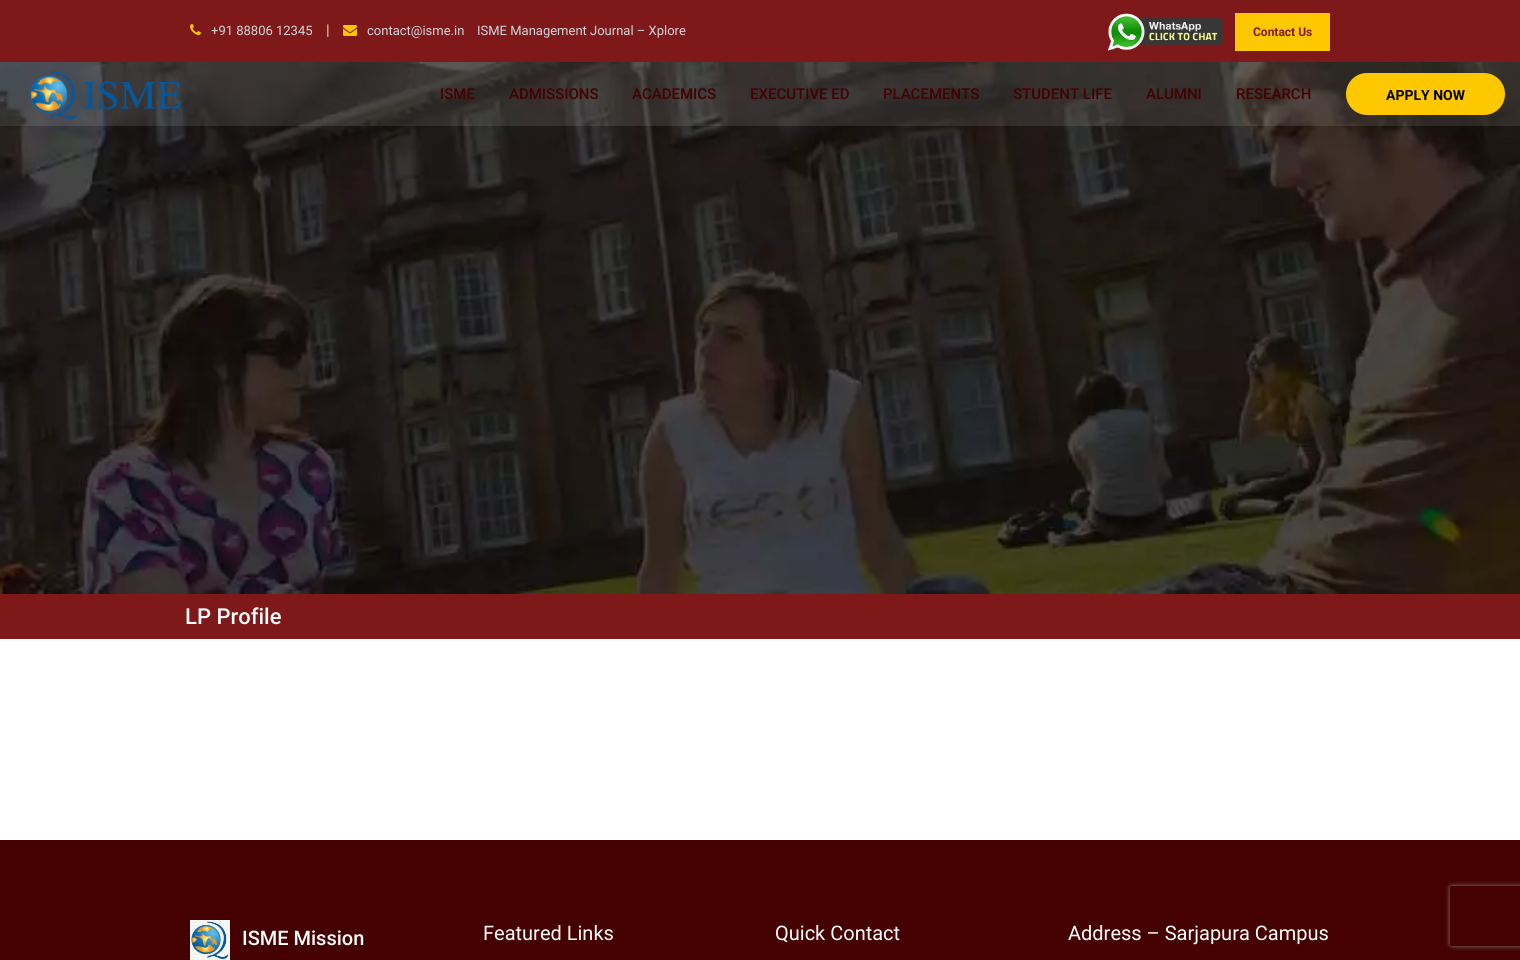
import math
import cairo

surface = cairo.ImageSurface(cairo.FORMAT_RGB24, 1520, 960)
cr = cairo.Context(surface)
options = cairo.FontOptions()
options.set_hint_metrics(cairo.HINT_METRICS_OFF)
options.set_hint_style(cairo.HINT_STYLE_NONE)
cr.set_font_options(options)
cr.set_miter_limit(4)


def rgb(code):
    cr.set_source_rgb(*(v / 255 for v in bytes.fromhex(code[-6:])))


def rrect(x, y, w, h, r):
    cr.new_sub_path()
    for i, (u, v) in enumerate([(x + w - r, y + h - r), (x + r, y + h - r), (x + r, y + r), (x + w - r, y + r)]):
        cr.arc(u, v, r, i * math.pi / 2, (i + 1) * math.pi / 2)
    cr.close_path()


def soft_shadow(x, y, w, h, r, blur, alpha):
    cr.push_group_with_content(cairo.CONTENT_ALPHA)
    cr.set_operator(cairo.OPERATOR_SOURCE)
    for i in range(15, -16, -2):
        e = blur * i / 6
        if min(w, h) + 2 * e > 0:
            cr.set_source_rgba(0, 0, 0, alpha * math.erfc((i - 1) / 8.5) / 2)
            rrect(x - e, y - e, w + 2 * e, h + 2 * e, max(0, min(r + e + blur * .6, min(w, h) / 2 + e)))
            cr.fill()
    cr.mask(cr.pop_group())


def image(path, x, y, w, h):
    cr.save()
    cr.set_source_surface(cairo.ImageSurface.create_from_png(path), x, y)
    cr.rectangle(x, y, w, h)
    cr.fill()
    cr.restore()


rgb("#ffffff")
cr.paint()
rgb("#7f1919")
cr.rectangle(0, 0, 1520, 62)
cr.fill()
image("img/1.png", 190, 24, 11, 11)
image("img/2.png", 343, 25, 14, 11)
image("img/3.png", 1108, 13, 115, 38)
rgb("#fdc800")
cr.rectangle(1235, 13, 95, 38)
cr.fill()
image("img/4.png", 0, 62, 1520, 532)
cr.set_source_rgba(1, 1, 1, 0.1)
cr.rectangle(0, 62, 1520, 64)
cr.fill()
image("img/5.png", 29, 70, 153, 50)
rgb("#fdc800")
rrect(1346, 73, 159, 42, 21)
cr.fill()
rgb("#7f1919")
cr.rectangle(0, 594, 1520, 45)
cr.fill()
rgb("#450000")
cr.rectangle(0, 840, 1520, 120)
cr.fill()
image("img/6.png", 190, 920, 40, 40)
cr.save()
cr.set_fill_rule(cairo.FILL_RULE_EVEN_ODD)
cr.new_path()
cr.move_to(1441, 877)
cr.line_to(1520, 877)
cr.line_to(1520, 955)
cr.line_to(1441, 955)
cr.close_path()
cr.move_to(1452, 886)
cr.line_to(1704, 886)
cr.curve_to(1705, 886, 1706, 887, 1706, 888)
cr.line_to(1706, 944)
cr.curve_to(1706, 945, 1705, 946, 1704, 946)
cr.line_to(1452, 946)
cr.curve_to(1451, 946, 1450, 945, 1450, 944)
cr.line_to(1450, 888)
cr.curve_to(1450, 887, 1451, 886, 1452, 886)
cr.close_path()
cr.clip()
rgb("#808080")
soft_shadow(1450, 886, 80, 60, 2, 2.5, 1)
cr.restore()
cr.select_font_face("Roboto")
cr.set_font_size(13)
rgb("#d0d6dd")
cr.move_to(211, 35)
cr.show_text("+91 88806 12345")
cr.set_font_size(15)
cr.move_to(326, 35)
cr.show_text("|")
cr.set_font_size(13)
cr.move_to(367, 35)
cr.show_text("contact@isme.in")
cr.move_to(477, 35)
cr.show_text("ISME Management Journal – Xplore")
cr.select_font_face("Roboto", cairo.FONT_SLANT_NORMAL, cairo.FONT_WEIGHT_BOLD)
cr.set_font_size(12)
rgb("#7f1919")
cr.move_to(1253, 36)
cr.show_text("Contact Us")
cr.select_font_face("Roboto Medium")
cr.set_font_size(15)
rgb("#450000")
for x, y, s in [
    (440, 99, "ISME"),
    (509, 99, "ADMISSIONS"),
    (632, 99, "ACADEMICS"),
    (750, 99, "EXECUTIVE ED"),
    (883, 99, "PLACEMENTS"),
    (1013, 99, "STUDENT LIFE"),
    (1146, 99, "ALUMNI"),
    (1236, 99, "RESEARCH"),
]:
    cr.move_to(x, y)
    cr.show_text(s)
cr.select_font_face("Roboto", cairo.FONT_SLANT_NORMAL, cairo.FONT_WEIGHT_BOLD)
cr.set_font_size(14)
rgb("#000000")
cr.move_to(1386, 100)
cr.show_text("APPLY NOW")
cr.select_font_face("Roboto Medium")
cr.set_font_size(22)
rgb("#ffffff")
cr.move_to(185, 624)
cr.show_text("LP Profile")
cr.set_font_size(20)
cr.move_to(242, 945)
cr.show_text("ISME Mission")
cr.select_font_face("Roboto")
for x, y, s in [
    (483, 940, "Featured Links"),
    (775, 940, "Quick Contact"),
    (1068, 940, "Address – Sarjapura Campus"),
]:
    cr.move_to(x, y)
    cr.show_text(s)
surface.write_to_png("page.png")
